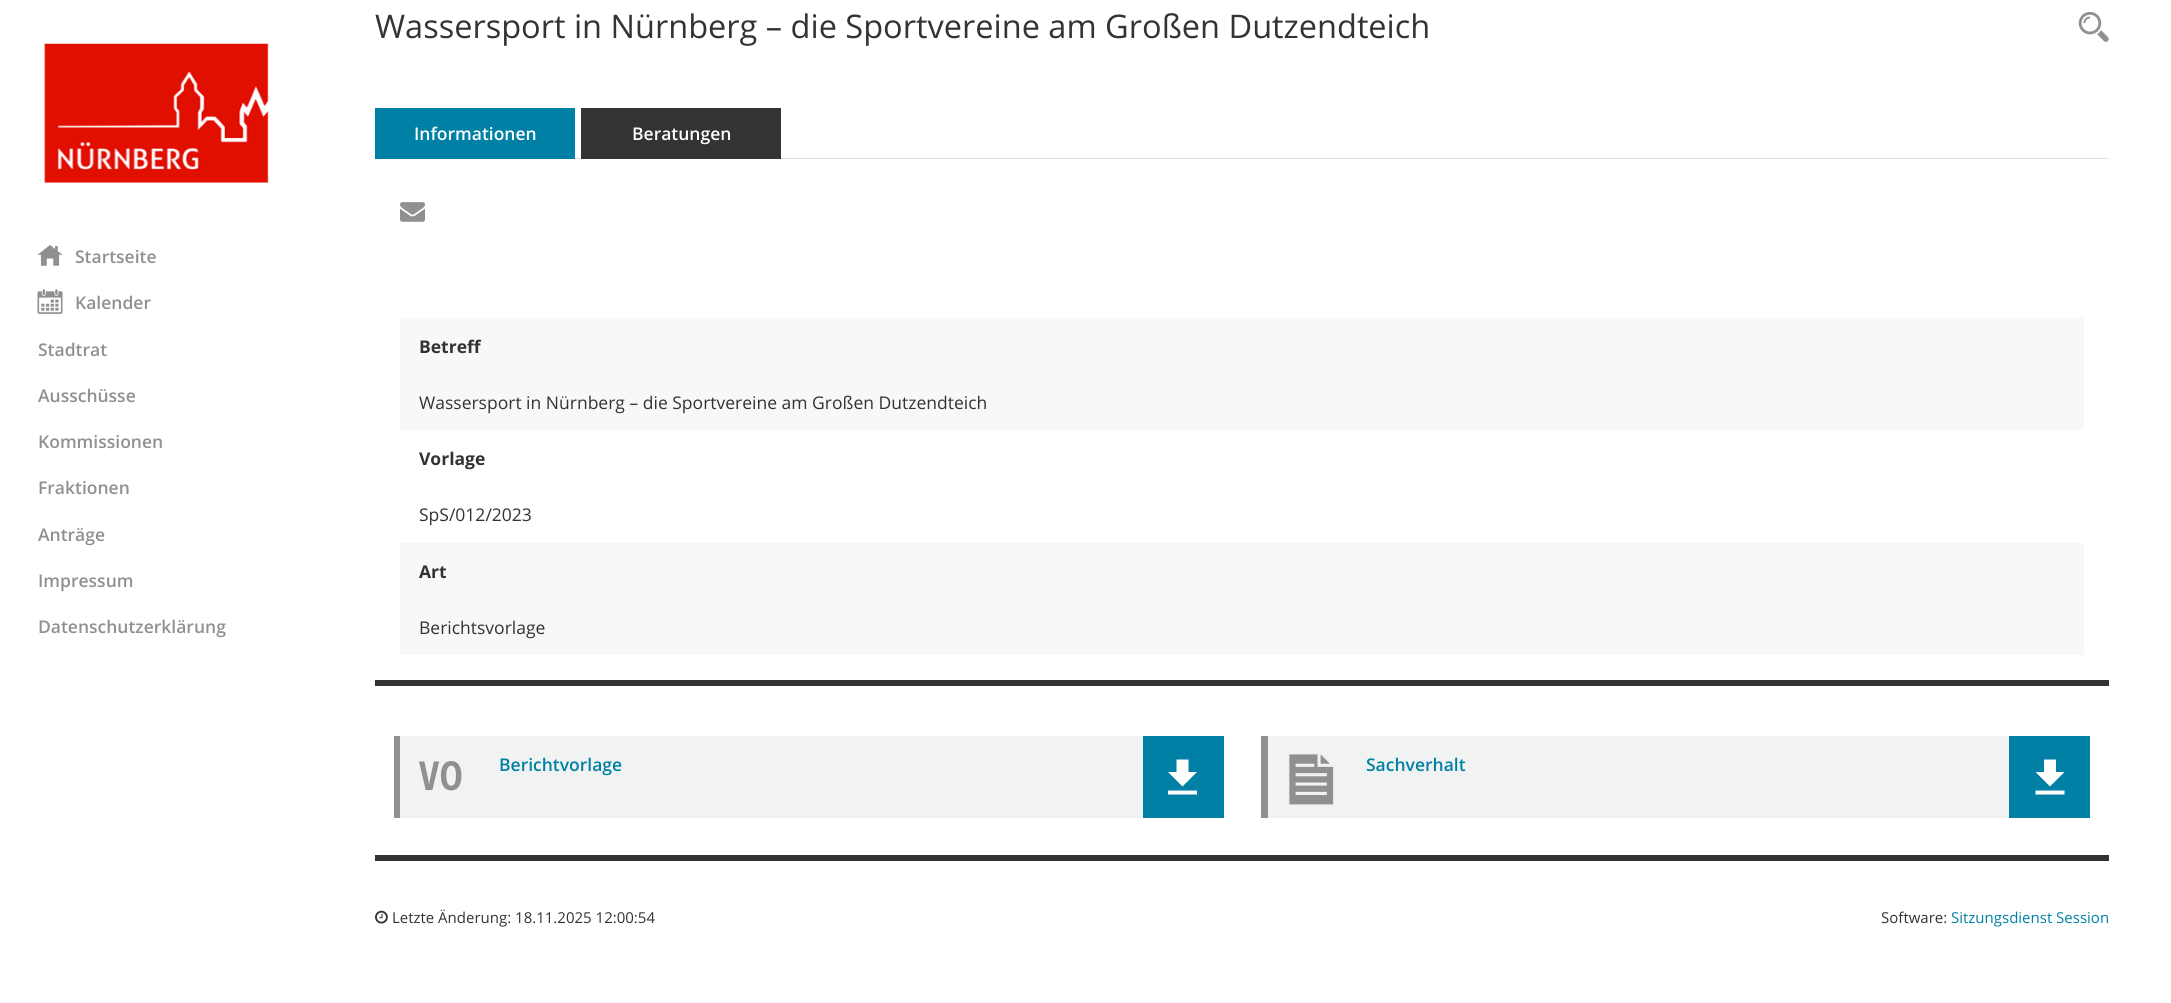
import math
import cairo

surface = cairo.ImageSurface(cairo.FORMAT_RGB24, 2171, 1003)
cr = cairo.Context(surface)
options = cairo.FontOptions()
options.set_hint_metrics(cairo.HINT_METRICS_OFF)
options.set_hint_style(cairo.HINT_STYLE_NONE)
cr.set_font_options(options)
cr.set_miter_limit(4)


def rgb(code):
    cr.set_source_rgb(*(v / 255 for v in bytes.fromhex(code[-6:])))


def image(path, x, y, w, h):
    cr.save()
    cr.set_source_surface(cairo.ImageSurface.create_from_png(path), x, y)
    cr.rectangle(x, y, w, h)
    cr.fill()
    cr.restore()


rgb("#ffffff")
cr.paint()
image("img/1.png", 44, 43, 225, 140)
image("img/2.png", 37, 245, 26, 21)
image("img/3.png", 37, 289, 26, 25)
image("img/4.png", 2078, 11, 31, 31)
for x, y, w, h, color in [
    (575, 158, 1534, 1, "#dee2e6"),
    (375, 108, 200, 51, "#0080a5"),
    (581, 108, 200, 51, "#333333"),
]:
    rgb(color)
    cr.rectangle(x, y, w, h)
    cr.fill()
image("img/5.png", 400, 202, 25, 20)
for x, y, w, h, color in [
    (375, 680, 1734, 6, "#333333"),
    (400, 318, 1684, 112, "#f8f8f8"),
    (400, 543, 1684, 112, "#f8f8f8"),
    (375, 855, 1734, 6, "#333333"),
    (400, 736, 743, 82, "#f0f3f2"),
    (394, 736, 6, 82, "#909090"),
    (1143, 736, 81, 82, "#0080a5"),
]:
    rgb(color)
    cr.rectangle(x, y, w, h)
    cr.fill()
rgb("#ffffff")
cr.new_path()
cr.move_to(1197, 772)
cr.line_to(1188.5, 772)
cr.line_to(1188.5, 759.5)
cr.line_to(1176.5, 759.5)
cr.line_to(1176.5, 772)
cr.line_to(1168, 772)
cr.line_to(1182.5, 786.5)
cr.close_path()
cr.move_to(1168, 790.5)
cr.line_to(1168, 794.5)
cr.line_to(1197, 794.5)
cr.line_to(1197, 790.5)
cr.close_path()
cr.fill()
rgb("#f0f3f2")
cr.rectangle(1268, 736, 741, 82)
cr.fill()
rgb("#909090")
cr.rectangle(1261, 736, 7, 82)
cr.fill()
image("img/6.png", 1289, 754, 45, 51)
rgb("#0080a5")
cr.rectangle(2009, 736, 81, 82)
cr.fill()
rgb("#ffffff")
cr.new_path()
cr.move_to(2064.5, 772)
cr.line_to(2056, 772)
cr.line_to(2056, 759.5)
cr.line_to(2044, 759.5)
cr.line_to(2044, 772)
cr.line_to(2035.5, 772)
cr.line_to(2050, 786.5)
cr.close_path()
cr.move_to(2035.5, 790.5)
cr.line_to(2035.5, 794.5)
cr.line_to(2064.5, 794.5)
cr.line_to(2064.5, 790.5)
cr.close_path()
cr.fill()
image("img/7.png", 375, 910, 13, 14)
cr.select_font_face("Open Sans SemiBold")
cr.set_font_size(17.5)
rgb("#909090")
for x, y, s in [
    (75, 263, "Startseite"),
    (75, 309, "Kalender"),
    (38, 356, "Stadtrat"),
    (38, 402, "Ausschüsse"),
    (38, 448, "Kommissionen"),
    (38, 494, "Fraktionen"),
    (38, 541, "Anträge"),
    (38, 587, "Impressum"),
    (38, 633, "Datenschutzerklärung"),
]:
    cr.move_to(x, y)
    cr.show_text(s)
cr.select_font_face("Open Sans")
cr.set_font_size(32.5)
rgb("#333333")
cr.move_to(375, 38)
cr.show_text("Wassersport in Nürnberg – die Sportvereine am Großen Dutzendteich")
cr.select_font_face("Open Sans SemiBold")
cr.set_font_size(17.5)
rgb("#ffffff")
cr.move_to(414, 140)
cr.show_text("Informationen")
cr.move_to(632, 140)
cr.show_text("Beratungen")
cr.select_font_face("Open Sans", cairo.FONT_SLANT_NORMAL, cairo.FONT_WEIGHT_BOLD)
rgb("#333333")
cr.move_to(419, 353)
cr.show_text("Betreff")
cr.select_font_face("Open Sans")
cr.move_to(419, 409)
cr.show_text("Wassersport in Nürnberg – die Sportvereine am Großen Dutzendteich")
cr.select_font_face("Open Sans", cairo.FONT_SLANT_NORMAL, cairo.FONT_WEIGHT_BOLD)
cr.move_to(419, 465)
cr.show_text("Vorlage")
cr.select_font_face("Open Sans")
cr.move_to(419, 521)
cr.show_text("SpS/012/2023")
cr.select_font_face("Open Sans", cairo.FONT_SLANT_NORMAL, cairo.FONT_WEIGHT_BOLD)
cr.move_to(419, 578)
cr.show_text("Art")
cr.select_font_face("Open Sans")
cr.move_to(419, 634)
cr.show_text("Berichtsvorlage")
cr.select_font_face("Open Sans Condensed", cairo.FONT_SLANT_NORMAL, cairo.FONT_WEIGHT_BOLD)
cr.set_font_size(40)
rgb("#909090")
cr.move_to(419, 790)
cr.show_text("VO")
cr.select_font_face("Open Sans SemiBold")
cr.set_font_size(17.5)
rgb("#0080a5")
cr.move_to(499, 771)
cr.show_text("Berichtvorlage")
cr.move_to(1366, 771)
cr.show_text("Sachverhalt")
cr.select_font_face("Open Sans")
cr.set_font_size(15)
rgb("#333333")
cr.move_to(392, 923)
cr.show_text("Letzte Änderung: 18.11.2025 12:00:54")
cr.move_to(1881, 923)
cr.show_text("Software:")
rgb("#0080a5")
cr.move_to(1951, 923)
cr.show_text("Sitzungsdienst Session")
surface.write_to_png("page.png")
